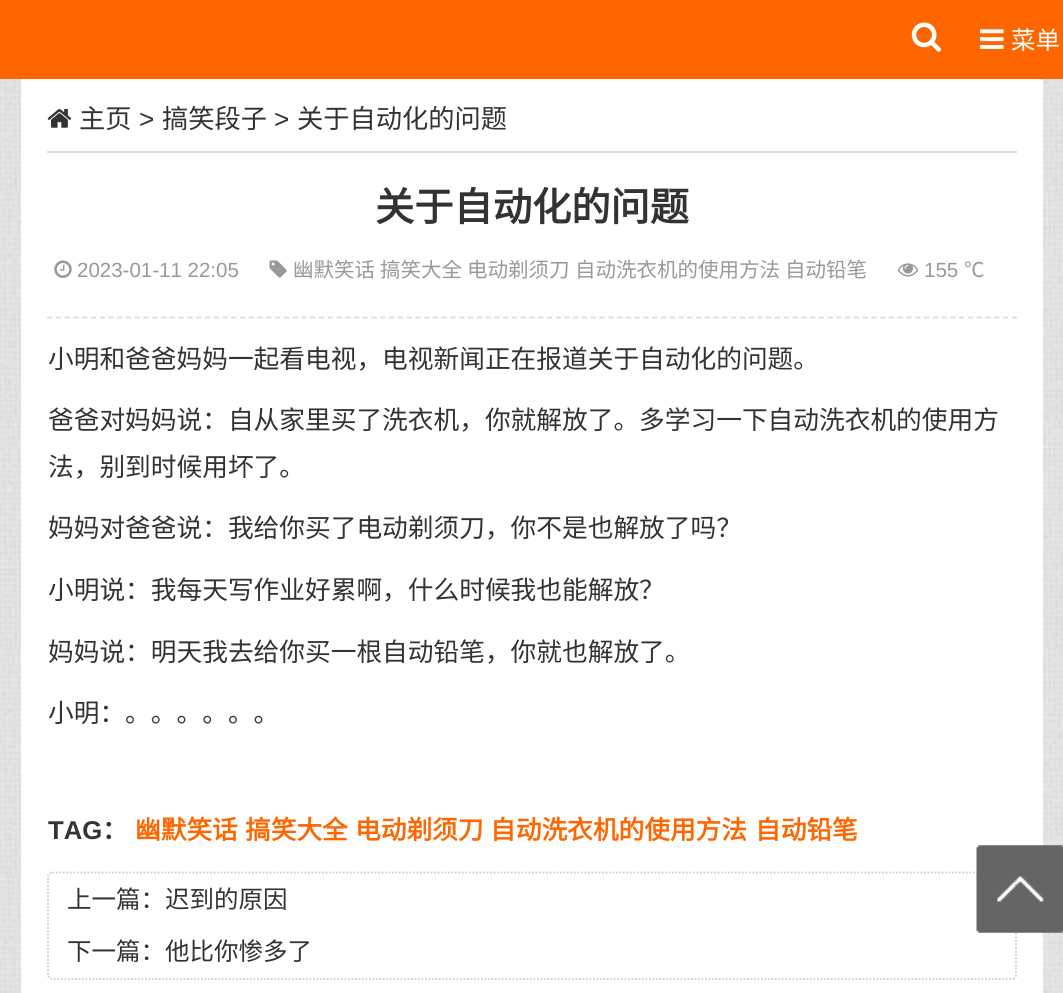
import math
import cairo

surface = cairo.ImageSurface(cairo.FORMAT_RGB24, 1063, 993)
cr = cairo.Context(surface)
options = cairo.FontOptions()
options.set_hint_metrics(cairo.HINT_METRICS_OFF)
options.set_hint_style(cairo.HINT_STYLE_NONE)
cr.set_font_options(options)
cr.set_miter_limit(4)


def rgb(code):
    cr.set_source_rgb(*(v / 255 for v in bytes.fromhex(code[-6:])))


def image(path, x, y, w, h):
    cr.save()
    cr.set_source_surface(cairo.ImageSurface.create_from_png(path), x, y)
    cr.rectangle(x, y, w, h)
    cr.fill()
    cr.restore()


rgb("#ffffff")
cr.paint()
image("img/1.png", 0, 79, 1063, 914)
rgb("#ff6600")
cr.rectangle(0, 0, 1063, 79)
cr.fill()
image("img/2.png", 911, 22, 30, 30)
image("img/3.png", 980, 29, 24, 20)
rgb("#ffffff")
cr.rectangle(21, 79, 1022, 914)
cr.fill()
rgb("#dddddd")
cr.rectangle(47, 151, 970, 2)
cr.fill()
image("img/4.png", 47, 109, 25, 19)
cr.new_path()
cr.move_to(47, 317.5)
cr.line_to(1017, 317.5)
cr.set_line_width(1.8)
cr.set_dash([5.25, 3.52])
cr.stroke()
image("img/5.png", 54, 260, 18, 18)
image("img/6.png", 269, 260, 18, 18)
image("img/7.png", 897, 263, 22, 14)
cr.new_path()
cr.move_to(52.5, 872.5)
cr.line_to(1011.5, 872.5)
cr.curve_to(1014, 872.5, 1016, 874.5, 1016, 877)
cr.line_to(1016, 975)
cr.curve_to(1016, 977, 1014, 979, 1011.5, 979)
cr.line_to(52.5, 979)
cr.curve_to(50, 979, 48, 977, 48, 975)
cr.line_to(48, 877)
cr.curve_to(48, 874.5, 50, 872.5, 52.5, 872.5)
cr.close_path()
rgb("#cccccc")
cr.set_dash([1.75, 1.75])
cr.stroke()
image("img/8.png", 976, 845, 87, 88)
cr.select_font_face("Noto Sans CJK SC")
cr.set_font_size(24.5)
rgb("#ffffff")
cr.move_to(1011, 49)
cr.show_text("菜单")
cr.set_font_size(26.25)
rgb("#333333")
cr.move_to(79, 128)
cr.show_text("主页")
cr.select_font_face("Liberation Sans")
cr.move_to(139, 128)
cr.show_text(">")
cr.select_font_face("Noto Sans CJK SC")
cr.move_to(162, 128)
cr.show_text("搞笑段子")
cr.select_font_face("Liberation Sans")
cr.move_to(274, 128)
cr.show_text(">")
cr.select_font_face("Noto Sans CJK SC")
cr.move_to(297, 128)
cr.show_text("关于自动化的问题")
cr.select_font_face("Noto Sans CJK SC", cairo.FONT_SLANT_NORMAL, cairo.FONT_WEIGHT_BOLD)
cr.set_font_size(39.25)
cr.move_to(375, 221)
cr.show_text("关于自动化的问题")
cr.select_font_face("Liberation Sans")
cr.set_font_size(20.5)
rgb("#999999")
cr.move_to(77, 277)
cr.show_text("2023-01-11 22:05")
cr.select_font_face("Noto Sans CJK SC")
for x, y, s in [
    (293, 277, "幽默笑话"),
    (380, 277, "搞笑大全"),
    (467, 277, "电动剃须刀"),
    (575, 277, "自动洗衣机的使用方法"),
    (785, 277, "自动铅笔"),
]:
    cr.move_to(x, y)
    cr.show_text(s)
cr.select_font_face("Liberation Sans")
cr.move_to(924, 277)
cr.show_text("155")
cr.select_font_face("Noto Sans CJK SC")
cr.move_to(964, 277)
cr.show_text("℃")
cr.set_font_size(25.7)
rgb("#333333")
for x, y, s in [
    (48, 368, "小明和爸爸妈妈一起看电视，电视新闻正在报道关于自动化的问题。"),
    (48, 429, "爸爸对妈妈说：自从家里买了洗衣机，你就解放了。多学习一下自动洗衣机的使用方"),
    (48, 476, "法，别到时候用坏了。"),
    (48, 537, "妈妈对爸爸说：我给你买了电动剃须刀，你不是也解放了吗？"),
    (48, 599, "小明说：我每天写作业好累啊，什么时候我也能解放？"),
    (48, 661, "妈妈说：明天我去给你买一根自动铅笔，你就也解放了。"),
    (48, 722, "小明：。。。。。。"),
]:
    cr.move_to(x, y)
    cr.show_text(s)
cr.select_font_face("Liberation Sans", cairo.FONT_SLANT_NORMAL, cairo.FONT_WEIGHT_BOLD)
cr.move_to(48, 839)
cr.show_text("TAG")
cr.select_font_face("Noto Sans CJK SC", cairo.FONT_SLANT_NORMAL, cairo.FONT_WEIGHT_BOLD)
cr.move_to(102, 839)
cr.show_text("：")
rgb("#ff6600")
for x, y, s in [
    (135, 839, "幽默笑话"),
    (245, 839, "搞笑大全"),
    (355, 839, "电动剃须刀"),
    (490, 839, "自动洗衣机的使用方法"),
    (755, 839, "自动铅笔"),
]:
    cr.move_to(x, y)
    cr.show_text(s)
cr.select_font_face("Noto Sans CJK SC")
cr.set_font_size(24.5)
rgb("#333333")
cr.move_to(67, 908)
cr.show_text("上一篇：迟到的原因")
cr.move_to(67, 960)
cr.show_text("下一篇：他比你惨多了")
surface.write_to_png("page.png")
